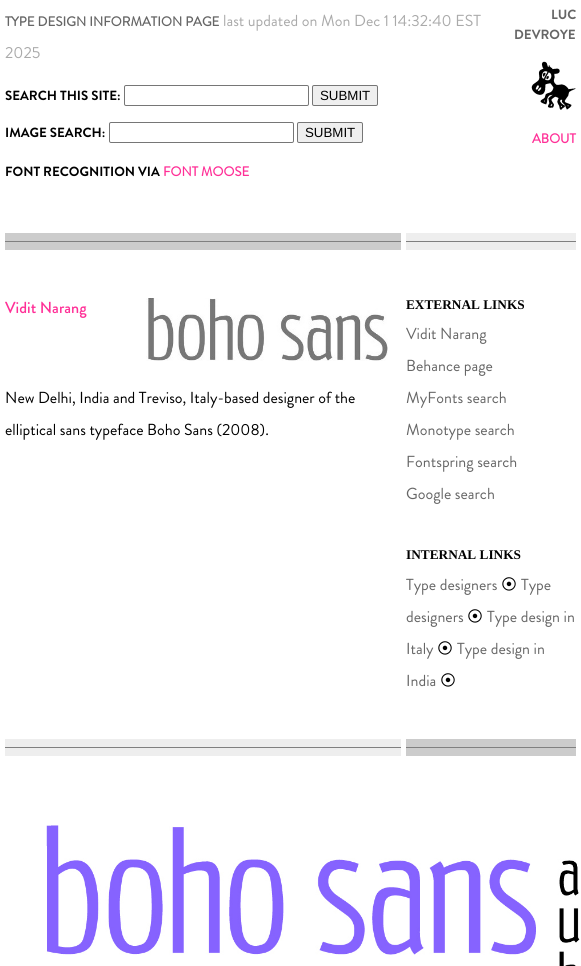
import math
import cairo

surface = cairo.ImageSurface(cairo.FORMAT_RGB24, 581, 966)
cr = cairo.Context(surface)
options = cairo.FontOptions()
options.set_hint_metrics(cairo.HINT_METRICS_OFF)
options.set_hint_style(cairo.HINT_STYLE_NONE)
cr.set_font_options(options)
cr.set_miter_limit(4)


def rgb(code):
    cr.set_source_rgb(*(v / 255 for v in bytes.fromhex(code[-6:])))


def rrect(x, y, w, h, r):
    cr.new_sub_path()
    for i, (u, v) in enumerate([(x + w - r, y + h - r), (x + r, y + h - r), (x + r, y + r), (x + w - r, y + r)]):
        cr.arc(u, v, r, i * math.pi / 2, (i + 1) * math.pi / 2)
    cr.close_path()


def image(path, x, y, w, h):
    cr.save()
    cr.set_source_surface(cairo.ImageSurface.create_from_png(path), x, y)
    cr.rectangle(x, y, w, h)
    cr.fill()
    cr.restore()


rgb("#ffffff")
cr.paint()
rrect(124.5, 85.5, 184, 20, 1.5)
rgb("#767676")
cr.set_line_width(1)
cr.stroke()
rgb("#efefef")
rrect(312.5, 85.5, 65, 20, 1.5)
cr.fill_preserve()
rgb("#767676")
cr.stroke()
rrect(109.5, 122.5, 184, 20, 1.5)
cr.stroke()
rgb("#efefef")
rrect(297.5, 122.5, 65, 20, 1.5)
cr.fill_preserve()
rgb("#767676")
cr.stroke()
image("img/1.png", 531, 61, 45, 49)
for x, y, w, h, color in [
    (5, 233, 396, 17, "#cccccc"),
    (5, 241, 396, 1, "#808080"),
    (406, 233, 170, 17, "#eeeeee"),
    (406, 241, 170, 1, "#808080"),
]:
    rgb(color)
    cr.rectangle(x, y, w, h)
    cr.fill()
image("img/2.png", 146, 298, 242, 63)
for x, y, w, h, color in [
    (5, 739, 396, 17, "#eeeeee"),
    (5, 747, 396, 1, "#808080"),
    (406, 739, 170, 17, "#cccccc"),
    (406, 747, 170, 1, "#808080"),
]:
    rgb(color)
    cr.rectangle(x, y, w, h)
    cr.fill()
image("img/3.png", 46, 825, 534, 141)
cr.select_font_face("Brandon Grotesque", cairo.FONT_SLANT_NORMAL, cairo.FONT_WEIGHT_BOLD)
cr.set_font_size(13.3)
rgb("#666666")
cr.move_to(5, 26)
cr.show_text("TYPE DESIGN INFORMATION PAGE")
cr.select_font_face("Brandon Grotesque")
cr.set_font_size(16)
rgb("#aaaaaa")
cr.move_to(223, 26)
cr.show_text("last updated on Mon Dec 1 14:32:40 EST")
cr.move_to(5, 58)
cr.show_text("2025")
cr.select_font_face("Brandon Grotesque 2", cairo.FONT_SLANT_NORMAL, cairo.FONT_WEIGHT_BOLD)
cr.set_font_size(13.3)
rgb("#000000")
cr.move_to(5, 100)
cr.show_text("SEARCH THIS SITE:")
cr.select_font_face("Liberation Sans")
cr.move_to(320, 100)
cr.show_text("SUBMIT")
cr.select_font_face("Brandon Grotesque 2", cairo.FONT_SLANT_NORMAL, cairo.FONT_WEIGHT_BOLD)
cr.move_to(5, 137)
cr.show_text("IMAGE SEARCH:")
cr.select_font_face("Liberation Sans")
cr.move_to(305, 137)
cr.show_text("SUBMIT")
cr.select_font_face("Brandon Grotesque 2", cairo.FONT_SLANT_NORMAL, cairo.FONT_WEIGHT_BOLD)
cr.move_to(5, 176)
cr.show_text("FONT RECOGNITION VIA")
cr.select_font_face("Brandon Grotesque", cairo.FONT_SLANT_NORMAL, cairo.FONT_WEIGHT_BOLD)
rgb("#ff3097")
cr.move_to(163, 176)
cr.show_text("FONT MOOSE")
cr.select_font_face("Brandon Grotesque 2", cairo.FONT_SLANT_NORMAL, cairo.FONT_WEIGHT_BOLD)
rgb("#666666")
cr.move_to(551, 19)
cr.show_text("LUC")
cr.move_to(514, 39)
cr.show_text("DEVROYE")
cr.select_font_face("Brandon Grotesque", cairo.FONT_SLANT_NORMAL, cairo.FONT_WEIGHT_BOLD)
rgb("#ff3097")
cr.move_to(532, 143)
cr.show_text("ABOUT")
cr.select_font_face("Brandon Grotesque Medium")
cr.set_font_size(16)
cr.move_to(5, 313)
cr.show_text("Vidit Narang")
cr.select_font_face("Brandon Grotesque")
rgb("#000000")
cr.move_to(5, 403)
cr.show_text("New Delhi, India and Treviso, Italy-based designer of the")
cr.move_to(5, 435)
cr.show_text("elliptical sans typeface Boho Sans (2008).")
cr.select_font_face("Liberation Serif", cairo.FONT_SLANT_NORMAL, cairo.FONT_WEIGHT_BOLD)
cr.set_font_size(13.3)
cr.move_to(406, 309)
cr.show_text("EXTERNAL LINKS")
cr.select_font_face("Brandon Grotesque")
cr.set_font_size(16)
rgb("#666666")
for x, y, s in [
    (406, 339, "Vidit Narang"),
    (406, 371, "Behance page"),
    (406, 403, "MyFonts search"),
    (406, 435, "Monotype search"),
    (406, 467, "Fontspring search"),
    (406, 499, "Google search"),
]:
    cr.move_to(x, y)
    cr.show_text(s)
cr.select_font_face("Liberation Serif", cairo.FONT_SLANT_NORMAL, cairo.FONT_WEIGHT_BOLD)
cr.set_font_size(13.3)
rgb("#000000")
cr.move_to(406, 559)
cr.show_text("INTERNAL LINKS")
cr.select_font_face("Brandon Grotesque")
cr.set_font_size(16)
rgb("#666666")
cr.move_to(406, 590)
cr.show_text("Type designers")
cr.select_font_face("IPAGothic")
rgb("#000000")
cr.move_to(501, 590)
cr.show_text("⦿")
cr.select_font_face("Brandon Grotesque")
rgb("#666666")
cr.move_to(521, 590)
cr.show_text("Type")
cr.move_to(406, 622)
cr.show_text("designers")
cr.select_font_face("IPAGothic")
rgb("#000000")
cr.move_to(467, 622)
cr.show_text("⦿")
cr.select_font_face("Brandon Grotesque")
rgb("#666666")
cr.move_to(487, 622)
cr.show_text("Type design in")
cr.move_to(406, 654)
cr.show_text("Italy")
cr.select_font_face("IPAGothic")
rgb("#000000")
cr.move_to(437, 654)
cr.show_text("⦿")
cr.select_font_face("Brandon Grotesque")
rgb("#666666")
cr.move_to(457, 654)
cr.show_text("Type design in")
cr.move_to(406, 686)
cr.show_text("India")
cr.select_font_face("IPAGothic")
rgb("#000000")
cr.move_to(440, 686)
cr.show_text("⦿")
surface.write_to_png("page.png")
